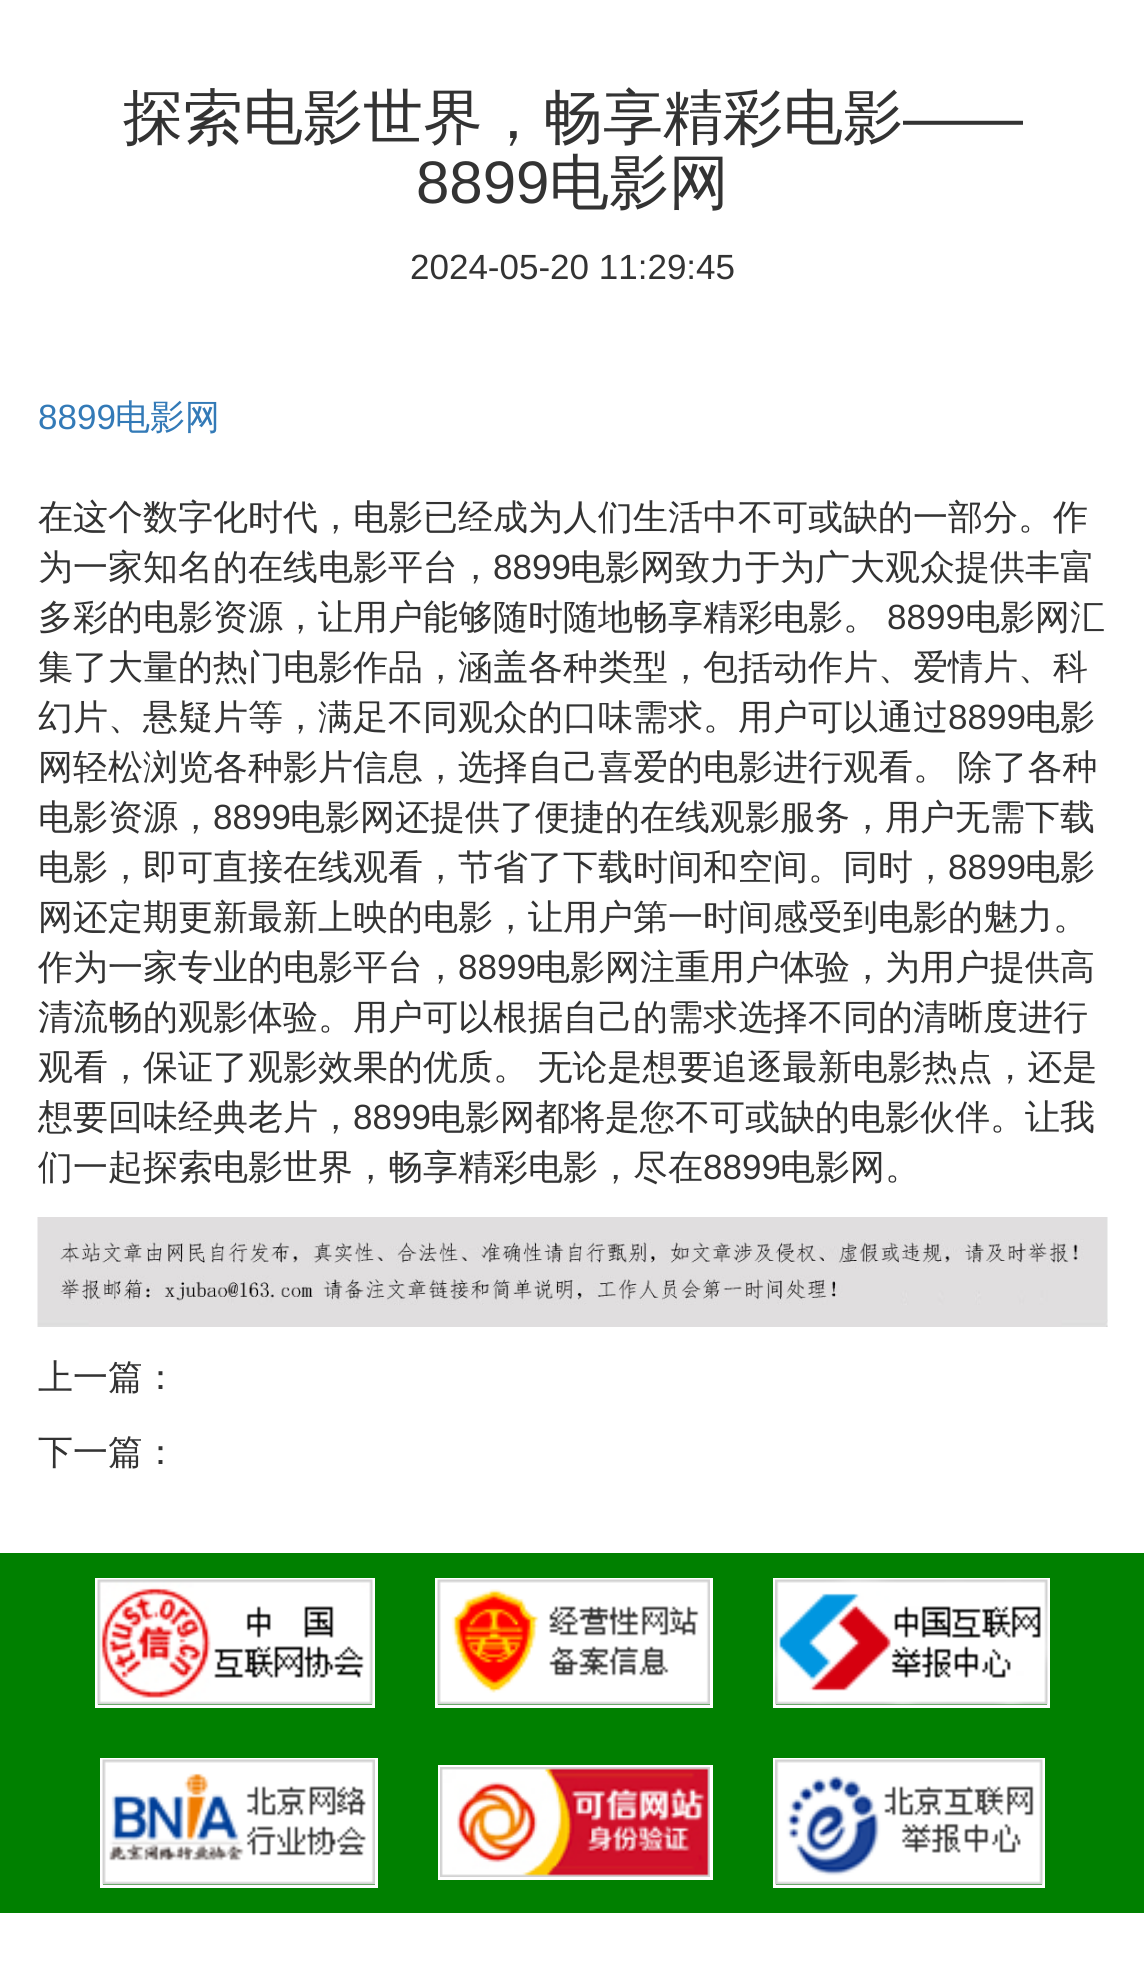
import math
import cairo

surface = cairo.ImageSurface(cairo.FORMAT_RGB24, 1144, 1974)
cr = cairo.Context(surface)
options = cairo.FontOptions()
options.set_hint_metrics(cairo.HINT_METRICS_OFF)
options.set_hint_style(cairo.HINT_STYLE_NONE)
cr.set_font_options(options)
cr.set_miter_limit(4)


def rgb(code):
    cr.set_source_rgb(*(v / 255 for v in bytes.fromhex(code[-6:])))


def tracked(x, y, s, letter, word):
    cr.move_to(x, y)
    for ch in s:
        cr.show_text(ch)
        cr.rel_move_to(letter + word * (ch == ' '), 0)


def image(path, x, y, w, h):
    cr.save()
    cr.set_source_surface(cairo.ImageSurface.create_from_png(path), x, y)
    cr.rectangle(x, y, w, h)
    cr.fill()
    cr.restore()


rgb("#ffffff")
cr.paint()
image("img/1.png", 37, 1217, 1071, 110)
rgb("#008000")
cr.rectangle(0, 1553, 1144, 360)
cr.fill()
cr.rectangle(96.5, 1579.5, 277, 127)
rgb("#ffffff")
cr.set_line_width(3)
cr.stroke()
cr.rectangle(436.5, 1579.5, 275, 127)
cr.stroke()
cr.rectangle(774.5, 1579.5, 274, 127)
cr.stroke()
image("img/2.png", 97, 1579, 276, 126)
image("img/3.png", 437, 1579, 273, 126)
image("img/4.png", 775, 1579, 273, 126)
cr.rectangle(101.5, 1759.5, 275, 127)
cr.stroke()
cr.rectangle(774.5, 1759.5, 269, 127)
cr.stroke()
image("img/5.png", 102, 1759, 273, 126)
cr.rectangle(439.5, 1766.5, 272, 112)
cr.stroke()
image("img/6.png", 775, 1759, 268, 126)
image("img/7.png", 440, 1767, 270, 110)
cr.select_font_face("WenQuanYi Zen Hei Medium")
cr.set_font_size(60)
rgb("#333333")
cr.move_to(123, 138)
cr.show_text("探索电影世界，畅享精彩电影")
cr.select_font_face("Liberation Sans")
cr.move_to(903, 138)
cr.show_text("——")
cr.move_to(416, 203)
cr.show_text("8899")
cr.select_font_face("WenQuanYi Zen Hei Medium")
cr.move_to(549, 203)
cr.show_text("电影网")
cr.select_font_face("Liberation Sans")
cr.set_font_size(35)
cr.move_to(410, 279)
cr.show_text("2024-05-20 11:29:45")
rgb("#337ab7")
cr.move_to(38, 429)
cr.show_text("8899")
cr.select_font_face("WenQuanYi Zen Hei Medium")
cr.move_to(115, 429)
cr.show_text("电影网")
rgb("#333333")
cr.move_to(38, 529)
cr.show_text("在这个数字化时代，电影已经成为人们生活中不可或缺的一部分。作")
cr.move_to(38, 579)
cr.show_text("为一家知名的在线电影平台，")
cr.select_font_face("Liberation Sans")
cr.move_to(493, 579)
cr.show_text("8899")
cr.select_font_face("WenQuanYi Zen Hei Medium")
cr.move_to(570, 579)
cr.show_text("电影网致力于为广大观众提供丰富")
cr.move_to(38, 629)
cr.show_text("多彩的电影资源，让用户能够随时随地畅享精彩电影。")
cr.select_font_face("Liberation Sans")
cr.move_to(887, 629)
cr.show_text("8899")
cr.select_font_face("WenQuanYi Zen Hei Medium")
for x, y, s in [
    (965, 629, "电影网汇"),
    (38, 679, "集了大量的热门电影作品，涵盖各种类型，包括动作片、爱情片、科"),
    (38, 729, "幻片、悬疑片等，满足不同观众的口味需求。用户可以通过"),
]:
    cr.move_to(x, y)
    cr.show_text(s)
cr.select_font_face("Liberation Sans")
cr.move_to(948, 729)
cr.show_text("8899")
cr.select_font_face("WenQuanYi Zen Hei Medium")
cr.move_to(1025, 729)
cr.show_text("电影")
tracked(38, 779, "网轻松浏览各种影片信息，选择自己喜爱的电影进行观看。 除了各种", 0, -1)
cr.move_to(38, 829)
cr.show_text("电影资源，")
cr.select_font_face("Liberation Sans")
cr.move_to(213, 829)
cr.show_text("8899")
cr.select_font_face("WenQuanYi Zen Hei Medium")
cr.move_to(290, 829)
cr.show_text("电影网还提供了便捷的在线观影服务，用户无需下载")
cr.move_to(38, 879)
cr.show_text("电影，即可直接在线观看，节省了下载时间和空间。同时，")
cr.select_font_face("Liberation Sans")
cr.move_to(948, 879)
cr.show_text("8899")
cr.select_font_face("WenQuanYi Zen Hei Medium")
for x, y, s in [
    (1025, 879, "电影"),
    (38, 929, "网还定期更新最新上映的电影，让用户第一时间感受到电影的魅力。"),
    (38, 979, "作为一家专业的电影平台，"),
]:
    cr.move_to(x, y)
    cr.show_text(s)
cr.select_font_face("Liberation Sans")
cr.move_to(458, 979)
cr.show_text("8899")
cr.select_font_face("WenQuanYi Zen Hei Medium")
cr.move_to(535, 979)
cr.show_text("电影网注重用户体验，为用户提供高")
cr.move_to(38, 1029)
cr.show_text("清流畅的观影体验。用户可以根据自己的需求选择不同的清晰度进行")
tracked(38, 1079, "观看，保证了观影效果的优质。 无论是想要追逐最新电影热点，还是", 0, -1)
cr.move_to(38, 1129)
cr.show_text("想要回味经典老片，")
cr.select_font_face("Liberation Sans")
cr.move_to(353, 1129)
cr.show_text("8899")
cr.select_font_face("WenQuanYi Zen Hei Medium")
cr.move_to(430, 1129)
cr.show_text("电影网都将是您不可或缺的电影伙伴。让我")
cr.move_to(38, 1179)
cr.show_text("们一起探索电影世界，畅享精彩电影，尽在")
cr.select_font_face("Liberation Sans")
cr.move_to(703, 1179)
cr.show_text("8899")
cr.select_font_face("WenQuanYi Zen Hei Medium")
for x, y, s in [
    (780, 1179, "电影网。"),
    (38, 1389, "上一篇："),
    (38, 1464, "下一篇："),
]:
    cr.move_to(x, y)
    cr.show_text(s)
surface.write_to_png("page.png")
